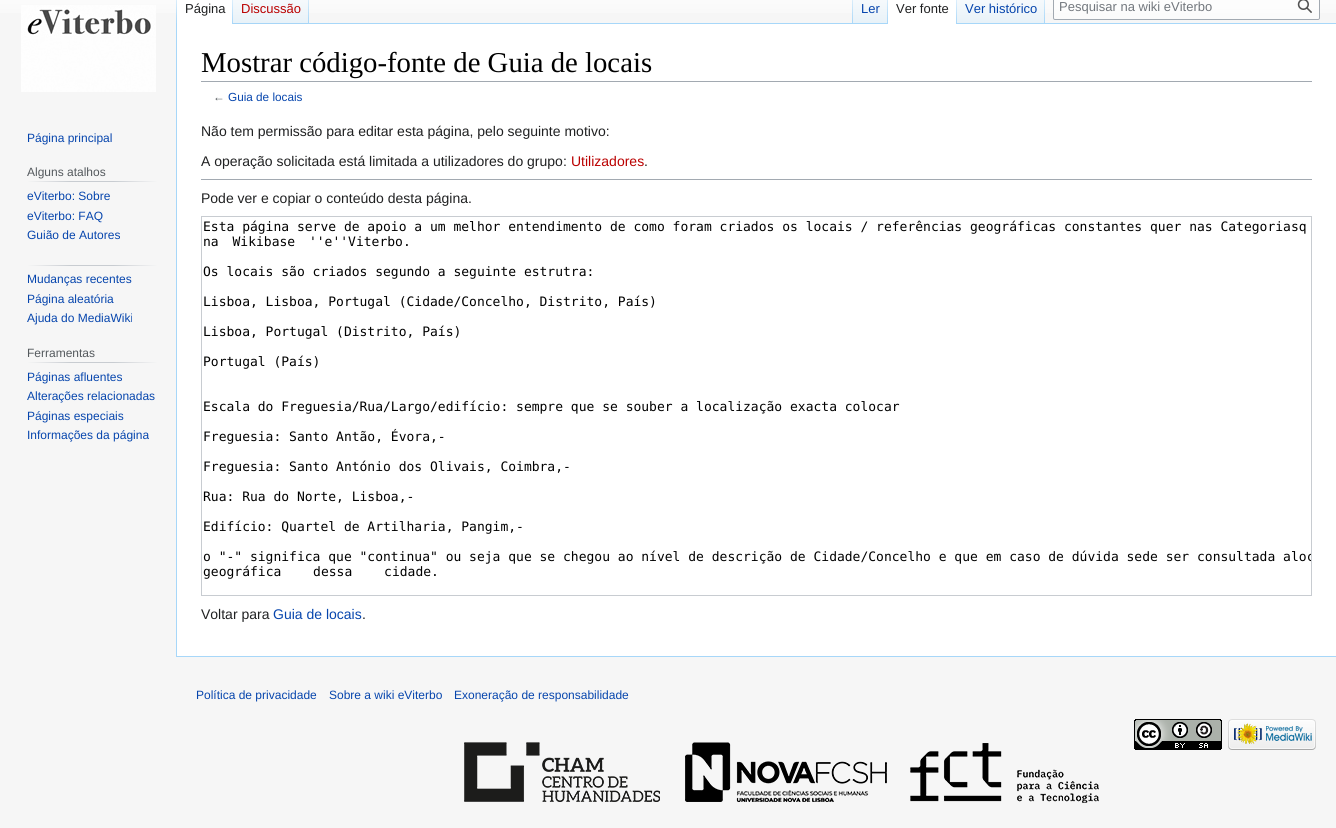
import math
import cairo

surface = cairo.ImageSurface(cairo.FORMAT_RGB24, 1336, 828)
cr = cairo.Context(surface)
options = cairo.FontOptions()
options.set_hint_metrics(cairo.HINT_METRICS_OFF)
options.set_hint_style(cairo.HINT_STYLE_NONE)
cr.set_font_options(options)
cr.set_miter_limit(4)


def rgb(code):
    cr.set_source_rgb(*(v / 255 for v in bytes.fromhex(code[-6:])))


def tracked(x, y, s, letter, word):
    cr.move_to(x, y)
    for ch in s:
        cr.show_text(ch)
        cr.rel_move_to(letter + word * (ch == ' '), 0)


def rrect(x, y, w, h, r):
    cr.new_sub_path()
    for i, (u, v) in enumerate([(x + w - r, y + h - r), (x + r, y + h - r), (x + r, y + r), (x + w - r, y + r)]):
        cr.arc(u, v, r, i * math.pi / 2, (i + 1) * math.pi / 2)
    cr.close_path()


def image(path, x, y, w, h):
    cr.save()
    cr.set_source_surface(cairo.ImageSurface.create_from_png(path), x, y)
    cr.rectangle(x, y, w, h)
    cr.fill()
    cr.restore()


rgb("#f6f6f6")
cr.paint()
gradient = cairo.LinearGradient(668, -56, 668, 24)
gradient.add_color_stop_rgba(0.5, 1, 1, 1, 1)
gradient.add_color_stop_rgba(1, 0.965, 0.965, 0.965, 1)
cr.set_source(gradient)
cr.rectangle(0, 0, 1336, 13)
cr.fill()
rgb("#a7d7f9")
cr.rectangle(176, 656, 1160, 1)
cr.fill()
cr.rectangle(176, 23, 1, 634)
cr.fill()
gradient = cairo.LinearGradient(177, -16, 177, 24)
gradient.add_color_stop_rgba(0, 0.655, 0.843, 0.976, 0)
gradient.add_color_stop_rgba(1, 0.655, 0.843, 0.976, 1)
cr.set_source(gradient)
cr.rectangle(176, 0, 1, 24)
cr.fill()
rgb("#ffffff")
cr.rectangle(177, 0, 55, 24)
cr.fill()
gradient = cairo.LinearGradient(233, -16, 233, 24)
gradient.add_color_stop_rgba(0, 1, 1, 1, 1)
gradient.add_color_stop_rgba(1, 0.655, 0.843, 0.976, 1)
cr.set_source(gradient)
cr.rectangle(232, 0, 1, 24)
cr.fill()
gradient = cairo.LinearGradient(271, 24, 271, -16)
gradient.add_color_stop_rgba(0, 0.467, 0.757, 0.965, 1)
gradient.add_color_stop_rgba(0.03, 0.91, 0.949, 0.973, 1)
gradient.add_color_stop_rgba(1, 1, 1, 1, 1)
cr.set_source(gradient)
cr.rectangle(233, 0, 76, 24)
cr.fill()
gradient = cairo.LinearGradient(309, -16, 309, 24)
gradient.add_color_stop_rgba(0, 0.655, 0.843, 0.976, 0)
gradient.add_color_stop_rgba(1, 0.655, 0.843, 0.976, 1)
cr.set_source(gradient)
cr.rectangle(308, 0, 1, 24)
cr.fill()
rgb("#a7d7f9")
cr.rectangle(309, 23, 1027, 1)
cr.fill()
gradient = cairo.LinearGradient(853, -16, 853, 24)
gradient.add_color_stop_rgba(0, 0.655, 0.843, 0.976, 0)
gradient.add_color_stop_rgba(1, 0.655, 0.843, 0.976, 1)
cr.set_source(gradient)
cr.rectangle(852, 0, 1, 24)
cr.fill()
gradient = cairo.LinearGradient(871, 24, 871, -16)
gradient.add_color_stop_rgba(0, 0.467, 0.757, 0.965, 1)
gradient.add_color_stop_rgba(0.03, 0.91, 0.949, 0.973, 1)
gradient.add_color_stop_rgba(1, 1, 1, 1, 1)
cr.set_source(gradient)
cr.rectangle(853, 0, 35, 23)
cr.fill()
gradient = cairo.LinearGradient(888, -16, 888, 24)
gradient.add_color_stop_rgba(0, 0.655, 0.843, 0.976, 0)
gradient.add_color_stop_rgba(1, 0.655, 0.843, 0.976, 1)
cr.set_source(gradient)
cr.rectangle(887, 0, 1, 24)
cr.fill()
rgb("#ffffff")
cr.rectangle(888, 0, 68, 24)
cr.fill()
gradient = cairo.LinearGradient(957, -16, 957, 24)
gradient.add_color_stop_rgba(0, 1, 1, 1, 1)
gradient.add_color_stop_rgba(1, 0.655, 0.843, 0.976, 1)
cr.set_source(gradient)
cr.rectangle(956, 0, 1, 24)
cr.fill()
gradient = cairo.LinearGradient(1001, 24, 1001, -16)
gradient.add_color_stop_rgba(0, 0.467, 0.757, 0.965, 1)
gradient.add_color_stop_rgba(0.03, 0.91, 0.949, 0.973, 1)
gradient.add_color_stop_rgba(1, 1, 1, 1, 1)
cr.set_source(gradient)
cr.rectangle(957, 0, 88, 23)
cr.fill()
gradient = cairo.LinearGradient(1045, -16, 1045, 24)
gradient.add_color_stop_rgba(0, 0.655, 0.843, 0.976, 0)
gradient.add_color_stop_rgba(1, 0.655, 0.843, 0.976, 1)
cr.set_source(gradient)
cr.rectangle(1044, 0, 1, 24)
cr.fill()
cr.set_source_rgba(1, 1, 1, 0.5)
rrect(1053.5, -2.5, 266, 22, 1.5)
cr.fill_preserve()
rgb("#a2a9b1")
cr.set_line_width(1)
cr.stroke()
image("img/1.png", 1297, 0, 15, 13)
image("img/2.png", 21, 5, 135, 87)
gradient = cairo.LinearGradient(27, 182, 158, 182)
gradient.add_color_stop_rgba(0, 0.965, 0.965, 0.965, 1)
gradient.add_color_stop_rgba(0.33, 0.784, 0.8, 0.82, 1)
gradient.add_color_stop_rgba(0.66, 0.784, 0.8, 0.82, 1)
gradient.add_color_stop_rgba(1, 0.965, 0.965, 0.965, 1)
cr.set_source(gradient)
cr.rectangle(27, 181, 131, 1)
cr.fill()
gradient = cairo.LinearGradient(27, 266, 158, 266)
gradient.add_color_stop_rgba(0, 0.965, 0.965, 0.965, 1)
gradient.add_color_stop_rgba(0.33, 0.784, 0.8, 0.82, 1)
gradient.add_color_stop_rgba(0.66, 0.784, 0.8, 0.82, 1)
gradient.add_color_stop_rgba(1, 0.965, 0.965, 0.965, 1)
cr.set_source(gradient)
cr.rectangle(27, 265, 131, 1)
cr.fill()
gradient = cairo.LinearGradient(27, 363, 158, 363)
gradient.add_color_stop_rgba(0, 0.965, 0.965, 0.965, 1)
gradient.add_color_stop_rgba(0.33, 0.784, 0.8, 0.82, 1)
gradient.add_color_stop_rgba(0.66, 0.784, 0.8, 0.82, 1)
gradient.add_color_stop_rgba(1, 0.965, 0.965, 0.965, 1)
cr.set_source(gradient)
cr.rectangle(27, 362, 131, 1)
cr.fill()
for x, y, w, h, color in [
    (177, 24, 1159, 632, "#ffffff"),
    (201, 81, 1111, 1, "#a2a9b1"),
    (201, 179, 1111, 1, "#a2a9b1"),
]:
    rgb(color)
    cr.rectangle(x, y, w, h)
    cr.fill()
cr.rectangle(201.5, 216.5, 1110, 379)
rgb("#c8ccd1")
cr.stroke()
image("img/3.png", 1134, 719, 88, 31)
image("img/4.png", 1228, 719, 88, 31)
image("img/5.png", 464, 742, 635, 61)
cr.select_font_face("Liberation Sans")
cr.set_font_size(13)
rgb("#202122")
cr.move_to(185, 13)
cr.show_text("Página")
rgb("#ba0000")
cr.move_to(241, 13)
cr.show_text("Discussão")
rgb("#0645ad")
cr.move_to(861, 13)
cr.show_text("Ler")
rgb("#202122")
cr.move_to(896, 13)
cr.show_text("Ver fonte")
rgb("#0645ad")
cr.move_to(965, 13)
cr.show_text("Ver histórico")
rgb("#72777d")
cr.move_to(1059, 11)
cr.show_text("Pesquisar na wiki eViterbo")
cr.set_font_size(12)
rgb("#0645ad")
cr.move_to(27, 142)
cr.show_text("Página principal")
rgb("#54595d")
cr.move_to(27, 176)
cr.show_text("Alguns atalhos")
rgb("#0645ad")
for x, y, s in [
    (27, 200, "eViterbo: Sobre"),
    (27, 220, "eViterbo: FAQ"),
    (27, 239, "Guião de Autores"),
    (27, 283, "Mudanças recentes"),
    (27, 303, "Página aleatória"),
    (27, 322, "Ajuda do MediaWiki"),
]:
    cr.move_to(x, y)
    cr.show_text(s)
rgb("#54595d")
cr.move_to(27, 357)
cr.show_text("Ferramentas")
rgb("#0645ad")
for x, y, s in [
    (27, 381, "Páginas afluentes"),
    (27, 400, "Alterações relacionadas"),
    (27, 420, "Páginas especiais"),
    (27, 439, "Informações da página"),
]:
    cr.move_to(x, y)
    cr.show_text(s)
cr.select_font_face("Liberation Serif")
cr.set_font_size(28.75)
rgb("#000000")
cr.move_to(201, 72)
cr.show_text("Mostrar código-fonte de Guia de locais")
cr.select_font_face("Liberation Sans")
cr.set_font_size(11.75)
rgb("#54595d")
cr.move_to(213, 101)
cr.show_text("←")
rgb("#0645ad")
cr.move_to(228, 101)
cr.show_text("Guia de locais")
cr.set_font_size(14)
rgb("#202122")
cr.move_to(201, 136)
cr.show_text("Não tem permissão para editar esta página, pelo seguinte motivo:")
cr.move_to(201, 166)
cr.show_text("A operação solicitada está limitada a utilizadores do grupo:")
rgb("#ba0000")
cr.move_to(571, 166)
cr.show_text("Utilizadores")
rgb("#202122")
cr.move_to(644, 166)
cr.show_text(".")
cr.move_to(201, 203)
cr.show_text("Pode ver e copiar o conteúdo desta página.")
cr.select_font_face("DejaVu Sans Mono")
cr.set_font_size(13)
rgb("#000000")
cr.move_to(203, 231)
cr.show_text("Esta página serve de apoio a um melhor entendimento de como foram criados os locais / referências geográficas constantes quer nas Categoriasq")
tracked(203, 246, "na Wikibase ''e''Viterbo.", 0, 6)
for x, y, s in [
    (203, 276, "Os locais são criados segundo a seguinte estrutra:"),
    (203, 306, "Lisboa, Lisboa, Portugal (Cidade/Concelho, Distrito, País)"),
    (203, 336, "Lisboa, Portugal (Distrito, País)"),
    (203, 366, "Portugal (País)"),
    (203, 411, "Escala do Freguesia/Rua/Largo/edifício: sempre que se souber a localização exacta colocar"),
    (203, 441, "Freguesia: Santo Antão, Évora,-"),
    (203, 471, "Freguesia: Santo António dos Olivais, Coimbra,-"),
    (203, 501, "Rua: Rua do Norte, Lisboa,-"),
    (203, 531, "Edifício: Quartel de Artilharia, Pangim,-"),
    (203, 561, "o \"-\" significa que \"continua\" ou seja que se chegou ao nível de descrição de Cidade/Concelho e que em caso de dúvida sede ser consultada a"),
]:
    cr.move_to(x, y)
    cr.show_text(s)
cr.save()
cr.rectangle(202, 217, 1109, 378)
cr.clip()
cr.move_to(1291, 561)
cr.show_text("loc")
cr.restore()
tracked(203, 576, "geográfica dessa cidade.", 0, 24)
cr.select_font_face("Liberation Sans")
cr.set_font_size(14)
rgb("#202122")
cr.move_to(201, 619)
cr.show_text("Voltar para")
rgb("#0645ad")
cr.move_to(273, 619)
cr.show_text("Guia de locais")
rgb("#202122")
cr.move_to(362, 619)
cr.show_text(".")
cr.set_font_size(12)
rgb("#0645ad")
for x, y, s in [
    (196, 699, "Política de privacidade"),
    (329, 699, "Sobre a wiki eViterbo"),
    (454, 699, "Exoneração de responsabilidade"),
]:
    cr.move_to(x, y)
    cr.show_text(s)
surface.write_to_png("page.png")
